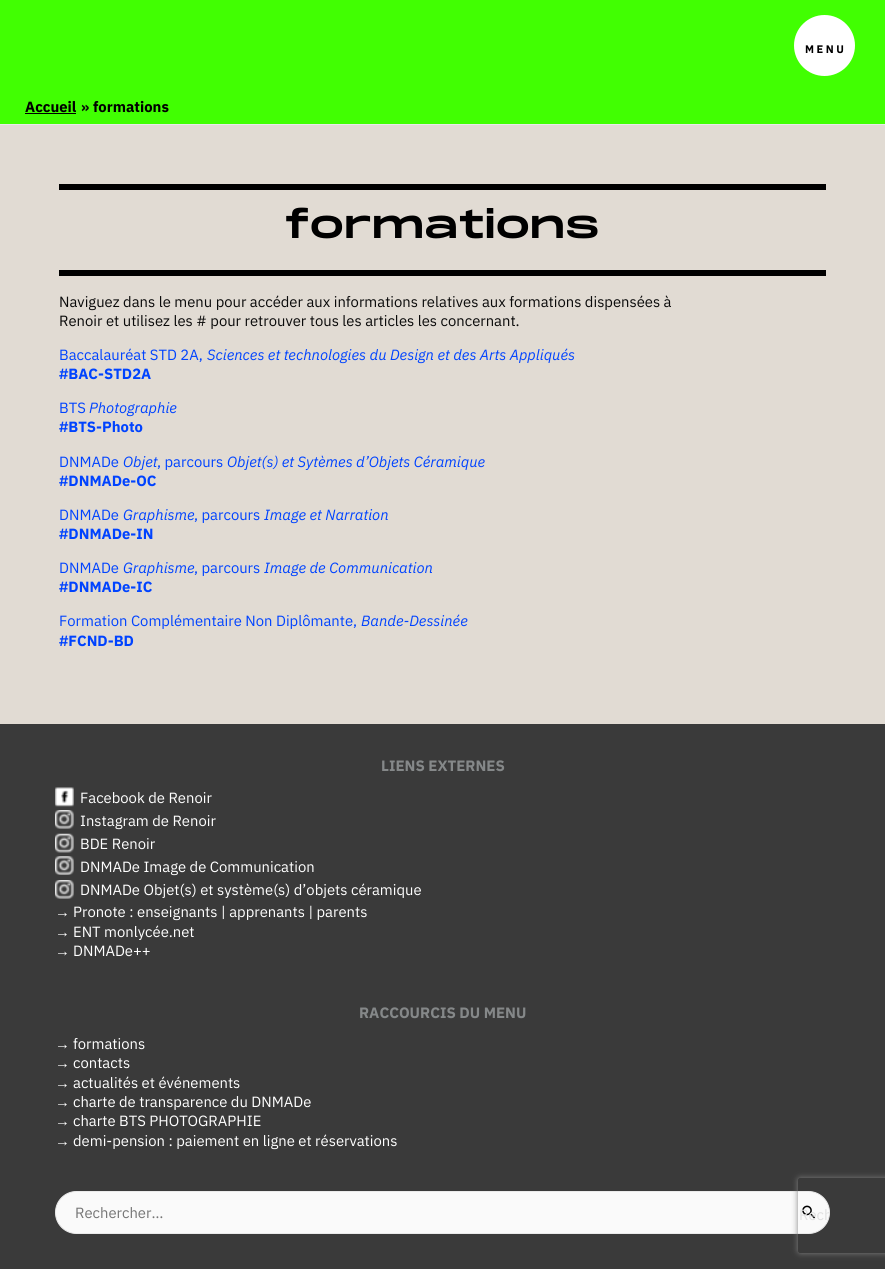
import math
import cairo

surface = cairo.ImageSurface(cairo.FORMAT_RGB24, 885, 1269)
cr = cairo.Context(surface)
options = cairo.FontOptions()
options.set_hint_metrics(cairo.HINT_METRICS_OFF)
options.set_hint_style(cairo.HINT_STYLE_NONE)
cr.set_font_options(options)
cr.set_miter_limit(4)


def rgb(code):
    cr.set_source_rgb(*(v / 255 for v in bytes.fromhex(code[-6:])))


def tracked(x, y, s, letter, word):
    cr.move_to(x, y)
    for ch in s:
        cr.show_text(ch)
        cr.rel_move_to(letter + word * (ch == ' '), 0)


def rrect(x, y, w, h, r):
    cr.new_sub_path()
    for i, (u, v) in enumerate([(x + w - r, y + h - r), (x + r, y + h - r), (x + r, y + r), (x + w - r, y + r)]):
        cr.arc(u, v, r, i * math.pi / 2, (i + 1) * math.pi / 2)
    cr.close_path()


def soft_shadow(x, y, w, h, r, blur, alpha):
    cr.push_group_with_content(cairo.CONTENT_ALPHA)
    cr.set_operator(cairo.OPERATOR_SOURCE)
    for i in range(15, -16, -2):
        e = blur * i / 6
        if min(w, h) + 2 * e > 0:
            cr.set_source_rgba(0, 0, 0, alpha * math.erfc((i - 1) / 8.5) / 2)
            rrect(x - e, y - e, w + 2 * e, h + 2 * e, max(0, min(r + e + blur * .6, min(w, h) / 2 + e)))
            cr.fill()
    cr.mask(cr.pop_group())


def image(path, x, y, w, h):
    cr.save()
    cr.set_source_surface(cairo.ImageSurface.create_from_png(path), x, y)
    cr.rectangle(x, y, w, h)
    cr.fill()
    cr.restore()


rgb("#e1dbd3")
cr.paint()
rgb("#41ff02")
cr.rectangle(0, 0, 885, 124)
cr.fill()
rgb("#ffffff")
cr.arc(824.5, 45.5, 30.5, 0, 2 * math.pi)
cr.fill()
for x, y, w, h, color in [
    (0, 124, 885, 1, "#eaeaea"),
    (25, 113, 51, 1, "#000000"),
    (59, 184, 767, 6, "#000000"),
    (59, 270, 767, 6, "#000000"),
    (0, 724, 885, 545, "#3a3a3a"),
]:
    rgb(color)
    cr.rectangle(x, y, w, h)
    cr.fill()
image("img/1.png", 55, 787, 19, 20)
image("img/2.png", 55, 810, 19, 19)
image("img/3.png", 55, 833, 19, 20)
image("img/4.png", 55, 856, 19, 19)
image("img/2.png", 55, 880, 19, 19)
rgb("#fafafa")
rrect(55.5, 1191.5, 774, 42, 21)
cr.fill_preserve()
rgb("#eaeaea")
cr.set_line_width(1)
cr.stroke()
image("img/5.png", 802, 1205, 14, 14)
cr.save()
cr.set_fill_rule(cairo.FILL_RULE_EVEN_ODD)
cr.new_path()
cr.move_to(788, 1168)
cr.line_to(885, 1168)
cr.line_to(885, 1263)
cr.line_to(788, 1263)
cr.close_path()
cr.move_to(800.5, 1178)
cr.line_to(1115.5, 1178)
cr.curve_to(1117, 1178, 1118, 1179, 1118, 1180.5)
cr.line_to(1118, 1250.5)
cr.curve_to(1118, 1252, 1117, 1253, 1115.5, 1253)
cr.line_to(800.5, 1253)
cr.curve_to(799, 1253, 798, 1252, 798, 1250.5)
cr.line_to(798, 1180.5)
cr.curve_to(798, 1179, 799, 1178, 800.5, 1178)
cr.close_path()
cr.clip()
rgb("#808080")
soft_shadow(798, 1178, 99, 75, 2.5, 3, 1)
cr.restore()
cr.select_font_face("IBM Plex Sans", cairo.FONT_SLANT_NORMAL, cairo.FONT_WEIGHT_BOLD)
cr.set_font_size(11)
rgb("#000000")
tracked(805, 53, "MENU", 2.5, 0)
cr.set_font_size(14.8)
cr.move_to(25, 112)
cr.show_text("Accueil")
rgb("#0a0a0a")
cr.move_to(81, 112)
cr.show_text("»")
rgb("#000000")
cr.move_to(93, 112)
cr.show_text("formations")
cr.select_font_face("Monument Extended")
cr.set_font_size(37.5)
tracked(285, 238, "formations", 1.25, 0)
cr.select_font_face("IBM Plex Sans")
cr.set_font_size(14.8)
rgb("#0a0a0a")
cr.move_to(59, 307)
cr.show_text("Naviguez dans le menu pour accéder aux informations relatives aux formations dispensées à")
cr.move_to(59, 326)
cr.show_text("Renoir et utilisez les # pour retrouver tous les articles les concernant.")
rgb("#0043ff")
cr.move_to(59, 360)
cr.show_text("Baccalauréat STD 2A,")
cr.select_font_face("IBM Plex Sans", cairo.FONT_SLANT_ITALIC)
cr.move_to(207, 360)
cr.show_text("Sciences et technologies du Design et des Arts Appliqués")
cr.select_font_face("IBM Plex Sans", cairo.FONT_SLANT_NORMAL, cairo.FONT_WEIGHT_BOLD)
cr.move_to(59, 379)
cr.show_text("#BAC-STD2A")
cr.select_font_face("IBM Plex Sans")
cr.move_to(59, 413)
cr.show_text("BTS")
cr.select_font_face("IBM Plex Sans", cairo.FONT_SLANT_ITALIC)
cr.move_to(89, 413)
cr.show_text("Photographie")
cr.select_font_face("IBM Plex Sans", cairo.FONT_SLANT_NORMAL, cairo.FONT_WEIGHT_BOLD)
cr.move_to(59, 432)
cr.show_text("#BTS-Photo")
cr.select_font_face("IBM Plex Sans")
cr.move_to(59, 467)
cr.show_text("DNMADe")
cr.select_font_face("IBM Plex Sans", cairo.FONT_SLANT_ITALIC)
cr.move_to(123, 467)
cr.show_text("Objet")
cr.select_font_face("IBM Plex Sans")
cr.move_to(157, 467)
cr.show_text(", parcours")
cr.select_font_face("IBM Plex Sans", cairo.FONT_SLANT_ITALIC)
cr.move_to(227, 467)
cr.show_text("Objet(s) et Sytèmes d’Objets Céramique")
cr.select_font_face("IBM Plex Sans", cairo.FONT_SLANT_NORMAL, cairo.FONT_WEIGHT_BOLD)
cr.move_to(59, 486)
cr.show_text("#DNMADe-OC")
cr.select_font_face("IBM Plex Sans")
cr.move_to(59, 520)
cr.show_text("DNMADe")
cr.select_font_face("IBM Plex Sans", cairo.FONT_SLANT_ITALIC)
cr.move_to(123, 520)
cr.show_text("Graphisme")
cr.select_font_face("IBM Plex Sans")
cr.move_to(194, 520)
cr.show_text(", parcours")
cr.select_font_face("IBM Plex Sans", cairo.FONT_SLANT_ITALIC)
cr.move_to(264, 520)
cr.show_text("Image et Narration")
cr.select_font_face("IBM Plex Sans", cairo.FONT_SLANT_NORMAL, cairo.FONT_WEIGHT_BOLD)
cr.move_to(59, 539)
cr.show_text("#DNMADe-IN")
cr.select_font_face("IBM Plex Sans")
cr.move_to(59, 573)
cr.show_text("DNMADe")
cr.select_font_face("IBM Plex Sans", cairo.FONT_SLANT_ITALIC)
cr.move_to(123, 573)
cr.show_text("Graphisme")
cr.select_font_face("IBM Plex Sans")
cr.move_to(194, 573)
cr.show_text(", parcours")
cr.select_font_face("IBM Plex Sans", cairo.FONT_SLANT_ITALIC)
cr.move_to(264, 573)
cr.show_text("Image de Communication")
cr.select_font_face("IBM Plex Sans", cairo.FONT_SLANT_NORMAL, cairo.FONT_WEIGHT_BOLD)
cr.move_to(59, 592)
cr.show_text("#DNMADe-IC")
cr.select_font_face("IBM Plex Sans")
cr.move_to(59, 626)
cr.show_text("Formation Complémentaire Non Diplômante,")
cr.select_font_face("IBM Plex Sans", cairo.FONT_SLANT_ITALIC)
cr.move_to(361, 626)
cr.show_text("Bande-Dessinée")
cr.select_font_face("IBM Plex Sans", cairo.FONT_SLANT_NORMAL, cairo.FONT_WEIGHT_BOLD)
cr.move_to(59, 646)
cr.show_text("#FCND-BD")
cr.set_font_size(15)
rgb("#858889")
cr.move_to(381, 771)
cr.show_text("LIENS EXTERNES")
cr.select_font_face("IBM Plex Sans")
cr.set_font_size(14.8)
rgb("#ffffff")
for x, y, s in [
    (80, 803, "Facebook de Renoir"),
    (80, 826, "Instagram de Renoir"),
    (80, 849, "BDE Renoir"),
    (80, 872, "DNMADe Image de Communication"),
    (80, 895, "DNMADe Objet(s) et système(s) d’objets céramique"),
]:
    cr.move_to(x, y)
    cr.show_text(s)
cr.select_font_face("Liberation Sans")
cr.move_to(55, 917)
cr.show_text("→")
cr.select_font_face("IBM Plex Sans")
cr.move_to(73, 917)
cr.show_text("Pronote : enseignants | apprenants | parents")
cr.select_font_face("Liberation Sans")
cr.move_to(55, 937)
cr.show_text("→")
cr.select_font_face("IBM Plex Sans")
cr.move_to(73, 937)
cr.show_text("ENT monlycée.net")
cr.select_font_face("Liberation Sans")
cr.move_to(55, 956)
cr.show_text("→")
cr.select_font_face("IBM Plex Sans")
cr.move_to(73, 956)
cr.show_text("DNMADe++")
cr.select_font_face("IBM Plex Sans", cairo.FONT_SLANT_NORMAL, cairo.FONT_WEIGHT_BOLD)
cr.set_font_size(15)
rgb("#858889")
cr.move_to(359, 1018)
cr.show_text("RACCOURCIS DU MENU")
cr.select_font_face("Liberation Sans")
cr.set_font_size(14.8)
rgb("#ffffff")
cr.move_to(55, 1049)
cr.show_text("→")
cr.select_font_face("IBM Plex Sans")
cr.move_to(73, 1049)
cr.show_text("formations")
cr.select_font_face("Liberation Sans")
cr.move_to(55, 1068)
cr.show_text("→")
cr.select_font_face("IBM Plex Sans")
cr.move_to(73, 1068)
cr.show_text("contacts")
cr.select_font_face("Liberation Sans")
cr.move_to(55, 1088)
cr.show_text("→")
cr.select_font_face("IBM Plex Sans")
cr.move_to(73, 1088)
cr.show_text("actualités et événements")
cr.select_font_face("Liberation Sans")
cr.move_to(55, 1107)
cr.show_text("→")
cr.select_font_face("IBM Plex Sans")
cr.move_to(73, 1107)
cr.show_text("charte de transparence du DNMADe")
cr.select_font_face("Liberation Sans")
cr.move_to(55, 1126)
cr.show_text("→")
cr.select_font_face("IBM Plex Sans")
cr.move_to(73, 1126)
cr.show_text("charte BTS PHOTOGRAPHIE")
cr.select_font_face("Liberation Sans")
cr.move_to(55, 1146)
cr.show_text("→")
cr.select_font_face("IBM Plex Sans")
cr.move_to(73, 1146)
cr.show_text("demi-pension : paiement en ligne et réservations")
rgb("#757575")
cr.move_to(75, 1218)
cr.show_text("Rechercher…")
cr.save()
rrect(774, 1191, 56, 38, 19)
cr.clip()
rgb("#e0e0e0")
cr.move_to(799, 1220)
cr.show_text("Rech")
cr.restore()
surface.write_to_png("page.png")
